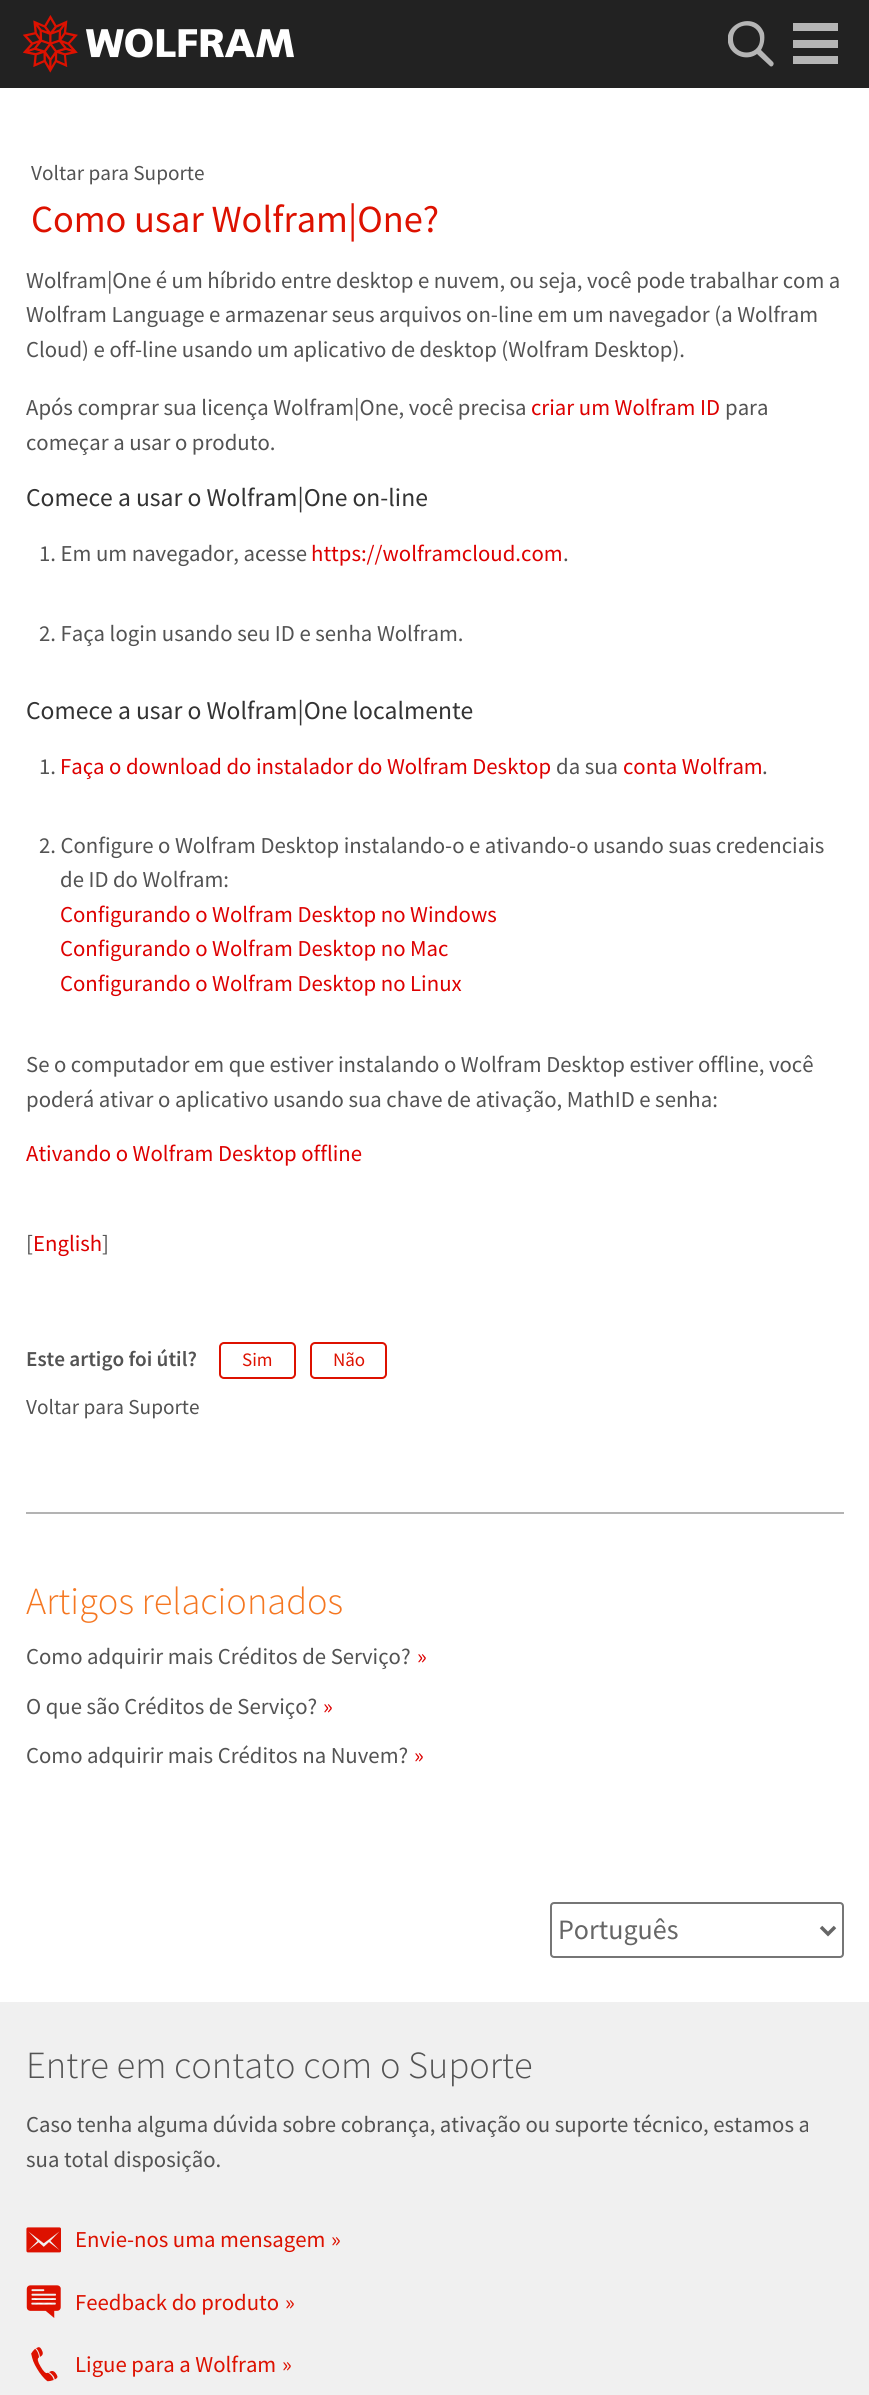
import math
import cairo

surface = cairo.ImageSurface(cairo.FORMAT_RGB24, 869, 2395)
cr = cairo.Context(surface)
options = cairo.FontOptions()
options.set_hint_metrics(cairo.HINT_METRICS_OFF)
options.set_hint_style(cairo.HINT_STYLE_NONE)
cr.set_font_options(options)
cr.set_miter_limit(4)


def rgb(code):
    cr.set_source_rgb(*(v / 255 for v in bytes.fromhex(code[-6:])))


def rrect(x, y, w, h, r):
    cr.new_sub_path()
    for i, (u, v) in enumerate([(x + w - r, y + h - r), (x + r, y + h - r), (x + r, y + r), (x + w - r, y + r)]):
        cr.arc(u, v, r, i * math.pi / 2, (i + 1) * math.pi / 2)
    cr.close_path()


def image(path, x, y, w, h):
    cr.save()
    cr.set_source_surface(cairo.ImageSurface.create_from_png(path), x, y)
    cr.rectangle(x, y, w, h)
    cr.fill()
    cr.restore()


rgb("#ffffff")
cr.paint()
rgb("#222222")
cr.rectangle(0, 0, 869, 88)
cr.fill()
image("img/1.png", 23, 15, 271, 58)
cr.save()
cr.rectangle(728, 21, 46, 46)
cr.clip()
rgb("#b5b5b5")
cr.new_path()
cr.move_to(773, 62)
cr.line_to(761, 50)
cr.curve_to(764, 45, 765, 39, 764, 33)
cr.curve_to(755, 9, 718, 25, 730, 48)
cr.curve_to(736, 58, 749, 60, 757, 54)
cr.line_to(770, 66)
cr.curve_to(772, 68, 775, 64, 773, 62)
cr.close_path()
cr.move_to(733, 39)
cr.curve_to(733, 21, 760, 21, 760, 39)
cr.curve_to(760, 57, 733, 57, 733, 39)
cr.close_path()
cr.fill()
cr.restore()
for x, y, w, h, color in [
    (793, 23, 45, 8, "#b5b5b5"),
    (793, 40, 45, 8, "#b5b5b5"),
    (793, 56, 45, 8, "#b5b5b5"),
]:
    rgb(color)
    cr.rectangle(x, y, w, h)
    cr.fill()
rrect(220, 1343, 75, 35, 4)
rgb("#dd1100")
cr.stroke()
rrect(311, 1343, 75, 35, 4)
cr.stroke()
rgb("#b3b3b3")
cr.rectangle(26, 1512, 818, 2)
cr.fill()
rrect(551, 1903, 292, 54, 3)
rgb("#767676")
cr.stroke()
cr.new_path()
cr.move_to(821, 1927)
cr.line_to(828, 1934)
cr.line_to(835, 1927)
rgb("#666666")
cr.set_line_width(3.5)
cr.stroke()
rgb("#f0f0f0")
cr.rectangle(0, 2002, 869, 393)
cr.fill()
image("img/2.png", 26, 2227, 35, 26)
image("img/3.png", 26, 2285, 35, 33)
image("img/4.png", 31, 2347, 27, 35)
cr.select_font_face("Source Sans Pro")
cr.set_font_size(21.25)
rgb("#535353")
cr.move_to(31, 180)
cr.show_text("Voltar para Suporte")
cr.set_font_size(38.4)
rgb("#dd1100")
cr.move_to(31, 232)
cr.show_text("Como usar Wolfram|One?")
cr.set_font_size(22.75)
rgb("#535353")
for x, y, s in [
    (26, 288, "Wolfram|One é um híbrido entre desktop e nuvem, ou seja, você pode trabalhar com a"),
    (26, 322, "Wolfram Language e armazenar seus arquivos on-line em um navegador (a Wolfram"),
    (26, 357, "Cloud) e off-line usando um aplicativo de desktop (Wolfram Desktop)."),
    (26, 415, "Após comprar sua licença Wolfram|One, você precisa"),
]:
    cr.move_to(x, y)
    cr.show_text(s)
rgb("#dd0000")
cr.move_to(531, 415)
cr.show_text("criar um Wolfram ID")
rgb("#535353")
cr.move_to(725, 415)
cr.show_text("para")
cr.move_to(26, 450)
cr.show_text("começar a usar o produto.")
cr.set_font_size(25.6)
rgb("#333333")
cr.move_to(26, 506)
cr.show_text("Comece a usar o Wolfram|One on-line")
cr.set_font_size(22.75)
rgb("#535353")
cr.move_to(39, 561)
cr.show_text("1. Em um navegador, acesse")
rgb("#dd0000")
cr.move_to(311, 561)
cr.show_text("https://wolframcloud.com")
rgb("#535353")
cr.move_to(563, 561)
cr.show_text(".")
cr.move_to(39, 641)
cr.show_text("2. Faça login usando seu ID e senha Wolfram.")
cr.set_font_size(25.6)
rgb("#333333")
cr.move_to(26, 719)
cr.show_text("Comece a usar o Wolfram|One localmente")
cr.set_font_size(22.75)
rgb("#535353")
cr.move_to(39, 774)
cr.show_text("1.")
rgb("#dd0000")
cr.move_to(60, 774)
cr.show_text("Faça o download do instalador do Wolfram Desktop")
rgb("#535353")
cr.move_to(556, 774)
cr.show_text("da sua")
rgb("#dd0000")
cr.move_to(623, 774)
cr.show_text("conta Wolfram")
rgb("#535353")
for x, y, s in [
    (762, 774, "."),
    (39, 853, "2. Configure o Wolfram Desktop instalando-o e ativando-o usando suas credenciais"),
    (60, 887, "de ID do Wolfram:"),
]:
    cr.move_to(x, y)
    cr.show_text(s)
rgb("#dd0000")
for x, y, s in [
    (60, 922, "Configurando o Wolfram Desktop no Windows"),
    (60, 956, "Configurando o Wolfram Desktop no Mac"),
    (60, 991, "Configurando o Wolfram Desktop no Linux"),
]:
    cr.move_to(x, y)
    cr.show_text(s)
rgb("#535353")
cr.move_to(26, 1072)
cr.show_text("Se o computador em que estiver instalando o Wolfram Desktop estiver offline, você")
cr.move_to(26, 1107)
cr.show_text("poderá ativar o aplicativo usando sua chave de ativação, MathID e senha:")
rgb("#dd0000")
cr.move_to(26, 1161)
cr.show_text("Ativando o Wolfram Desktop offline")
rgb("#535353")
cr.move_to(26, 1251)
cr.show_text("[")
rgb("#dd0000")
cr.move_to(33, 1251)
cr.show_text("English")
rgb("#535353")
cr.move_to(102, 1251)
cr.show_text("]")
cr.select_font_face("Source Sans Pro SemiBold")
cr.set_font_size(21.25)
cr.move_to(26, 1366)
cr.show_text("Este artigo foi útil?")
cr.select_font_face("Source Sans Pro")
cr.set_font_size(19)
rgb("#dd1100")
cr.move_to(242, 1366)
cr.show_text("Sim")
cr.move_to(333, 1366)
cr.show_text("Não")
cr.set_font_size(21.25)
rgb("#535353")
cr.move_to(26, 1414)
cr.show_text("Voltar para Suporte")
cr.select_font_face("Source Sans Pro Light")
cr.set_font_size(38.4)
rgb("#f57721")
cr.move_to(26, 1614)
cr.show_text("Artigos relacionados")
cr.select_font_face("Source Sans Pro")
cr.set_font_size(22.75)
rgb("#535353")
cr.move_to(26, 1664)
cr.show_text("Como adquirir mais Créditos de Serviço?")
rgb("#dd0000")
cr.move_to(417, 1664)
cr.show_text("»")
rgb("#535353")
cr.move_to(26, 1714)
cr.show_text("O que são Créditos de Serviço?")
rgb("#dd0000")
cr.move_to(323, 1714)
cr.show_text("»")
rgb("#535353")
cr.move_to(26, 1763)
cr.show_text("Como adquirir mais Créditos na Nuvem?")
rgb("#dd0000")
cr.move_to(414, 1763)
cr.show_text("»")
cr.set_font_size(28)
rgb("#666666")
cr.move_to(558, 1939)
cr.show_text("Português")
cr.select_font_face("Source Sans Pro Light")
cr.set_font_size(38.4)
rgb("#535353")
cr.move_to(26, 2078)
cr.show_text("Entre em contato com o Suporte")
cr.select_font_face("Source Sans Pro")
cr.set_font_size(22.75)
cr.move_to(26, 2132)
cr.show_text("Caso tenha alguma dúvida sobre cobrança, ativação ou suporte técnico, estamos a")
cr.move_to(26, 2167)
cr.show_text("sua total disposição.")
rgb("#dd1100")
for x, y, s in [
    (75, 2247, "Envie-nos uma mensagem"),
    (331, 2247, "»"),
    (75, 2310, "Feedback do produto"),
    (285, 2310, "»"),
    (75, 2372, "Ligue para a Wolfram"),
    (282, 2372, "»"),
]:
    cr.move_to(x, y)
    cr.show_text(s)
surface.write_to_png("page.png")
